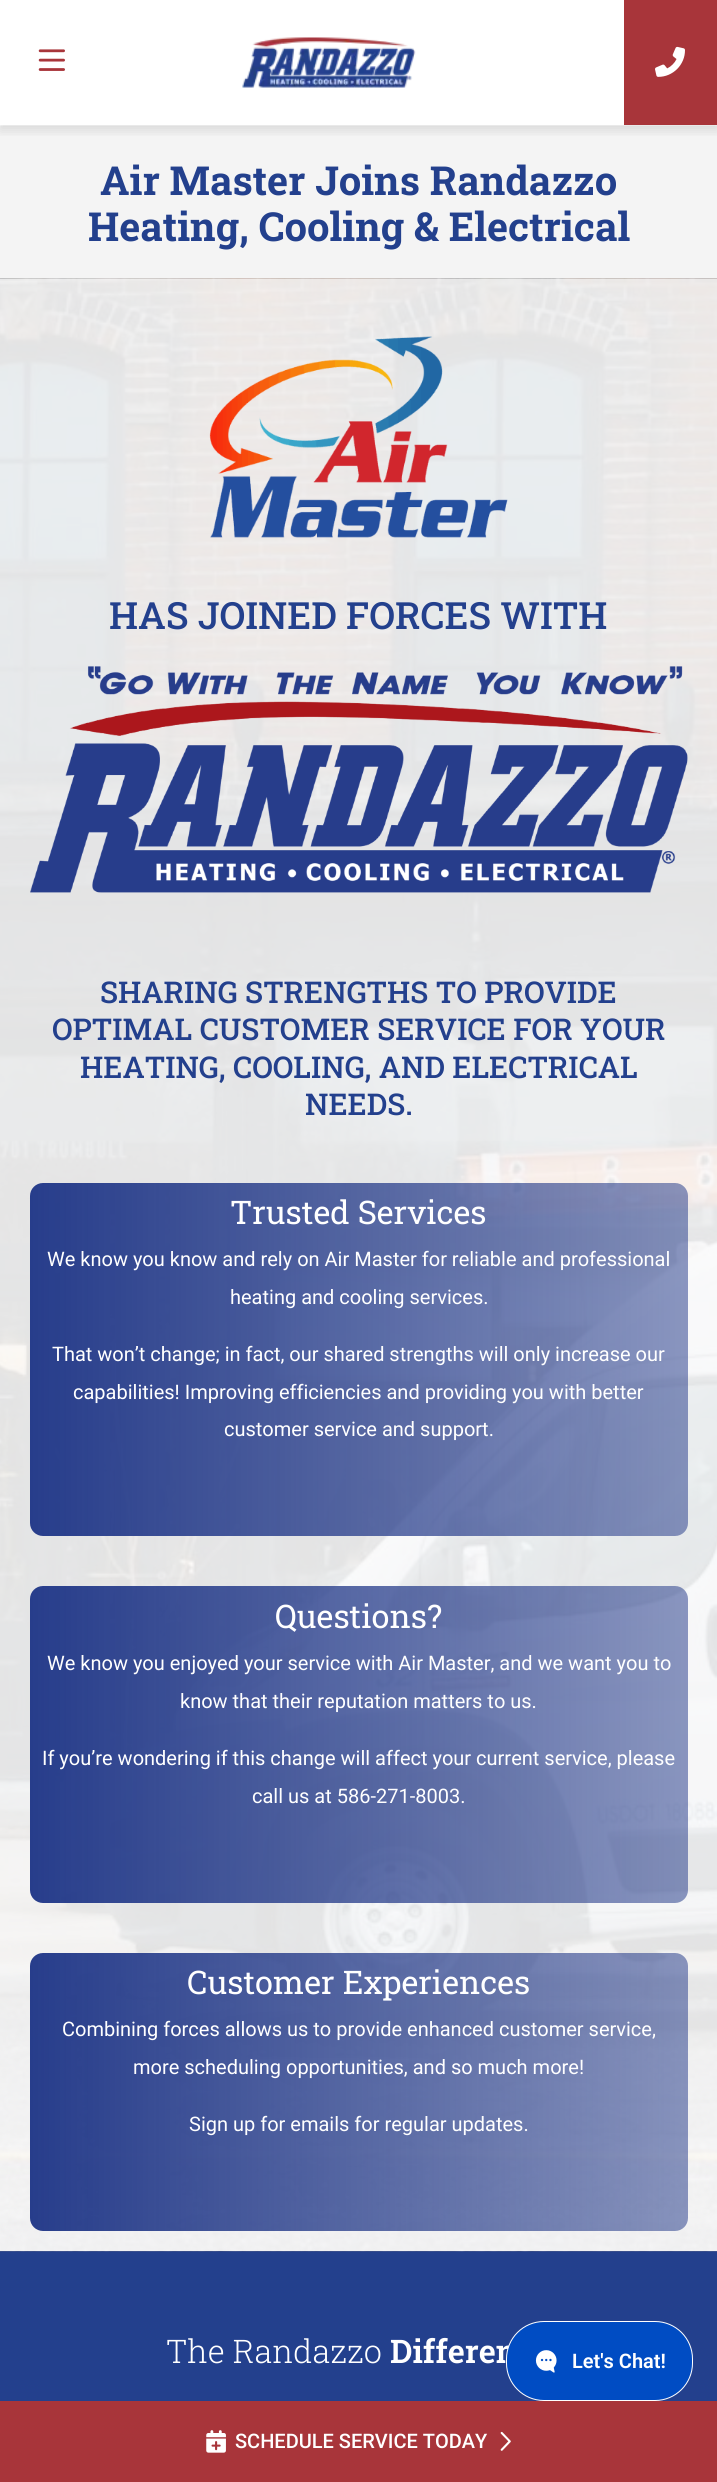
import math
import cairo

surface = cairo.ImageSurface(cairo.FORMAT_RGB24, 717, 2482)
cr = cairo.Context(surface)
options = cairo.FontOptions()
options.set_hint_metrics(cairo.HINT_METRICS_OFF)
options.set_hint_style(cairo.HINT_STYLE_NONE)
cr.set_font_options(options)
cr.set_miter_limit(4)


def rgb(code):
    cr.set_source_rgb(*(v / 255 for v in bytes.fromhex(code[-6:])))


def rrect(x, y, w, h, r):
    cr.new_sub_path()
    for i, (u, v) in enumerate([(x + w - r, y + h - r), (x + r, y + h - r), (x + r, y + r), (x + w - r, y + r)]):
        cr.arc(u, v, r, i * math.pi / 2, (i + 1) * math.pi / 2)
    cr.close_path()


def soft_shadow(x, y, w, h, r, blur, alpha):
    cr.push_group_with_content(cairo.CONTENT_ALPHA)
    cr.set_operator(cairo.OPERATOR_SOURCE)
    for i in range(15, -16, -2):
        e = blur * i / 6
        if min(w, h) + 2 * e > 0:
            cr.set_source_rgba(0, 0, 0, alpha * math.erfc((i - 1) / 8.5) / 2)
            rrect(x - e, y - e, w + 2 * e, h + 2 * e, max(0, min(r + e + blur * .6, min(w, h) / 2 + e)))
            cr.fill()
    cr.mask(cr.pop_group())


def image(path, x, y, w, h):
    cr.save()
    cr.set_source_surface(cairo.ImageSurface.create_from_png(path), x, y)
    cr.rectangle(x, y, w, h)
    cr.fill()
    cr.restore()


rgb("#ffffff")
cr.paint()
rgb("#f4f4f4")
cr.rectangle(0, 126, 717, 153)
cr.fill()
cr.save()
cr.rectangle(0, 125, 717, 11)
cr.clip()
rgb("#000000")
soft_shadow(0, 5, 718, 125, 0, 6, 0.12)
cr.restore()
image("img/1.png", 38, 49, 27, 22)
image("img/2.png", 242, 37, 174, 51)
rgb("#a8353a")
cr.rectangle(624, 0, 93, 125)
cr.fill()
image("img/3.png", 655, 46, 30, 31)
rgb("#23408d")
cr.rectangle(0, 2251, 717, 150)
cr.fill()
image("img/4.png", 0, 278, 717, 1974)
image("img/5.png", 209, 336, 299, 202)
image("img/6.png", 30, 666, 658, 227)
rgb("#a8353a")
cr.rectangle(0, 2401, 717, 81)
cr.fill()
image("img/8.png", 206, 2430, 20, 23)
image("img/9.png", 500, 2431, 11, 20)
cr.select_font_face("Roboto Slab", cairo.FONT_SLANT_NORMAL, cairo.FONT_WEIGHT_BOLD)
cr.set_font_size(40)
rgb("#23408d")
cr.move_to(100, 195)
cr.show_text("Air Master Joins Randazzo")
cr.move_to(88, 241)
cr.show_text("Heating, Cooling & Electrical")
cr.select_font_face("Roboto Slab Medium")
cr.set_font_size(37.5)
cr.move_to(109, 629)
cr.show_text("HAS JOINED FORCES WITH")
cr.set_font_size(30)
for x, y, s in [
    (100, 1003, "SHARING STRENGTHS TO PROVIDE"),
    (52, 1040, "OPTIMAL CUSTOMER SERVICE FOR YOUR"),
    (80, 1078, "HEATING, COOLING, AND ELECTRICAL"),
    (305, 1115, "NEEDS."),
]:
    cr.move_to(x, y)
    cr.show_text(s)
cr.select_font_face("Roboto Slab")
cr.set_font_size(32.5)
rgb("#ffffff")
cr.move_to(230, 1224)
cr.show_text("Trusted Services")
cr.select_font_face("Roboto")
cr.set_font_size(20)
for x, y, s in [
    (47, 1266, "We know you know and rely on Air Master for reliable and professional"),
    (230, 1304, "heating and cooling services."),
    (52, 1361, "That won’t change; in fact, our shared strengths will only increase our"),
    (73, 1399, "capabilities! Improving efficiencies and providing you with better"),
    (224, 1436, "customer service and support."),
]:
    cr.move_to(x, y)
    cr.show_text(s)
cr.select_font_face("Roboto Slab")
cr.set_font_size(32.5)
cr.move_to(275, 1628)
cr.show_text("Questions?")
cr.select_font_face("Roboto")
cr.set_font_size(20)
for x, y, s in [
    (47, 1670, "We know you enjoyed your service with Air Master, and we want you to"),
    (180, 1708, "know that their reputation matters to us."),
    (42, 1765, "If you’re wondering if this change will affect your current service, please"),
    (252, 1803, "call us at 586-271-8003."),
]:
    cr.move_to(x, y)
    cr.show_text(s)
cr.select_font_face("Roboto Slab")
cr.set_font_size(32.5)
cr.move_to(187, 1994)
cr.show_text("Customer Experiences")
cr.select_font_face("Roboto")
cr.set_font_size(20)
for x, y, s in [
    (62, 2036, "Combining forces allows us to provide enhanced customer service,"),
    (133, 2074, "more scheduling opportunities, and so much more!"),
    (189, 2131, "Sign up for emails for regular updates."),
]:
    cr.move_to(x, y)
    cr.show_text(s)
cr.select_font_face("Roboto Slab Light")
cr.set_font_size(32.5)
cr.move_to(166, 2363)
cr.show_text("The Randazzo")
cr.select_font_face("Roboto Slab SemiBold")
cr.move_to(390, 2363)
cr.show_text("Differen")
rgb("#004cc3")
rrect(506.5, 2321.5, 186, 79, 37.5)
cr.fill_preserve()
rgb("#ffffff")
cr.set_line_width(1)
cr.stroke()
image("img/7.png", 535, 2350, 22, 23)
cr.select_font_face("Roboto SemiBold")
cr.set_font_size(20)
cr.move_to(572, 2368)
cr.show_text("Let's Chat!")
cr.select_font_face("Roboto Medium")
cr.move_to(235, 2448)
cr.show_text("SCHEDULE SERVICE TODAY")
surface.write_to_png("page.png")
